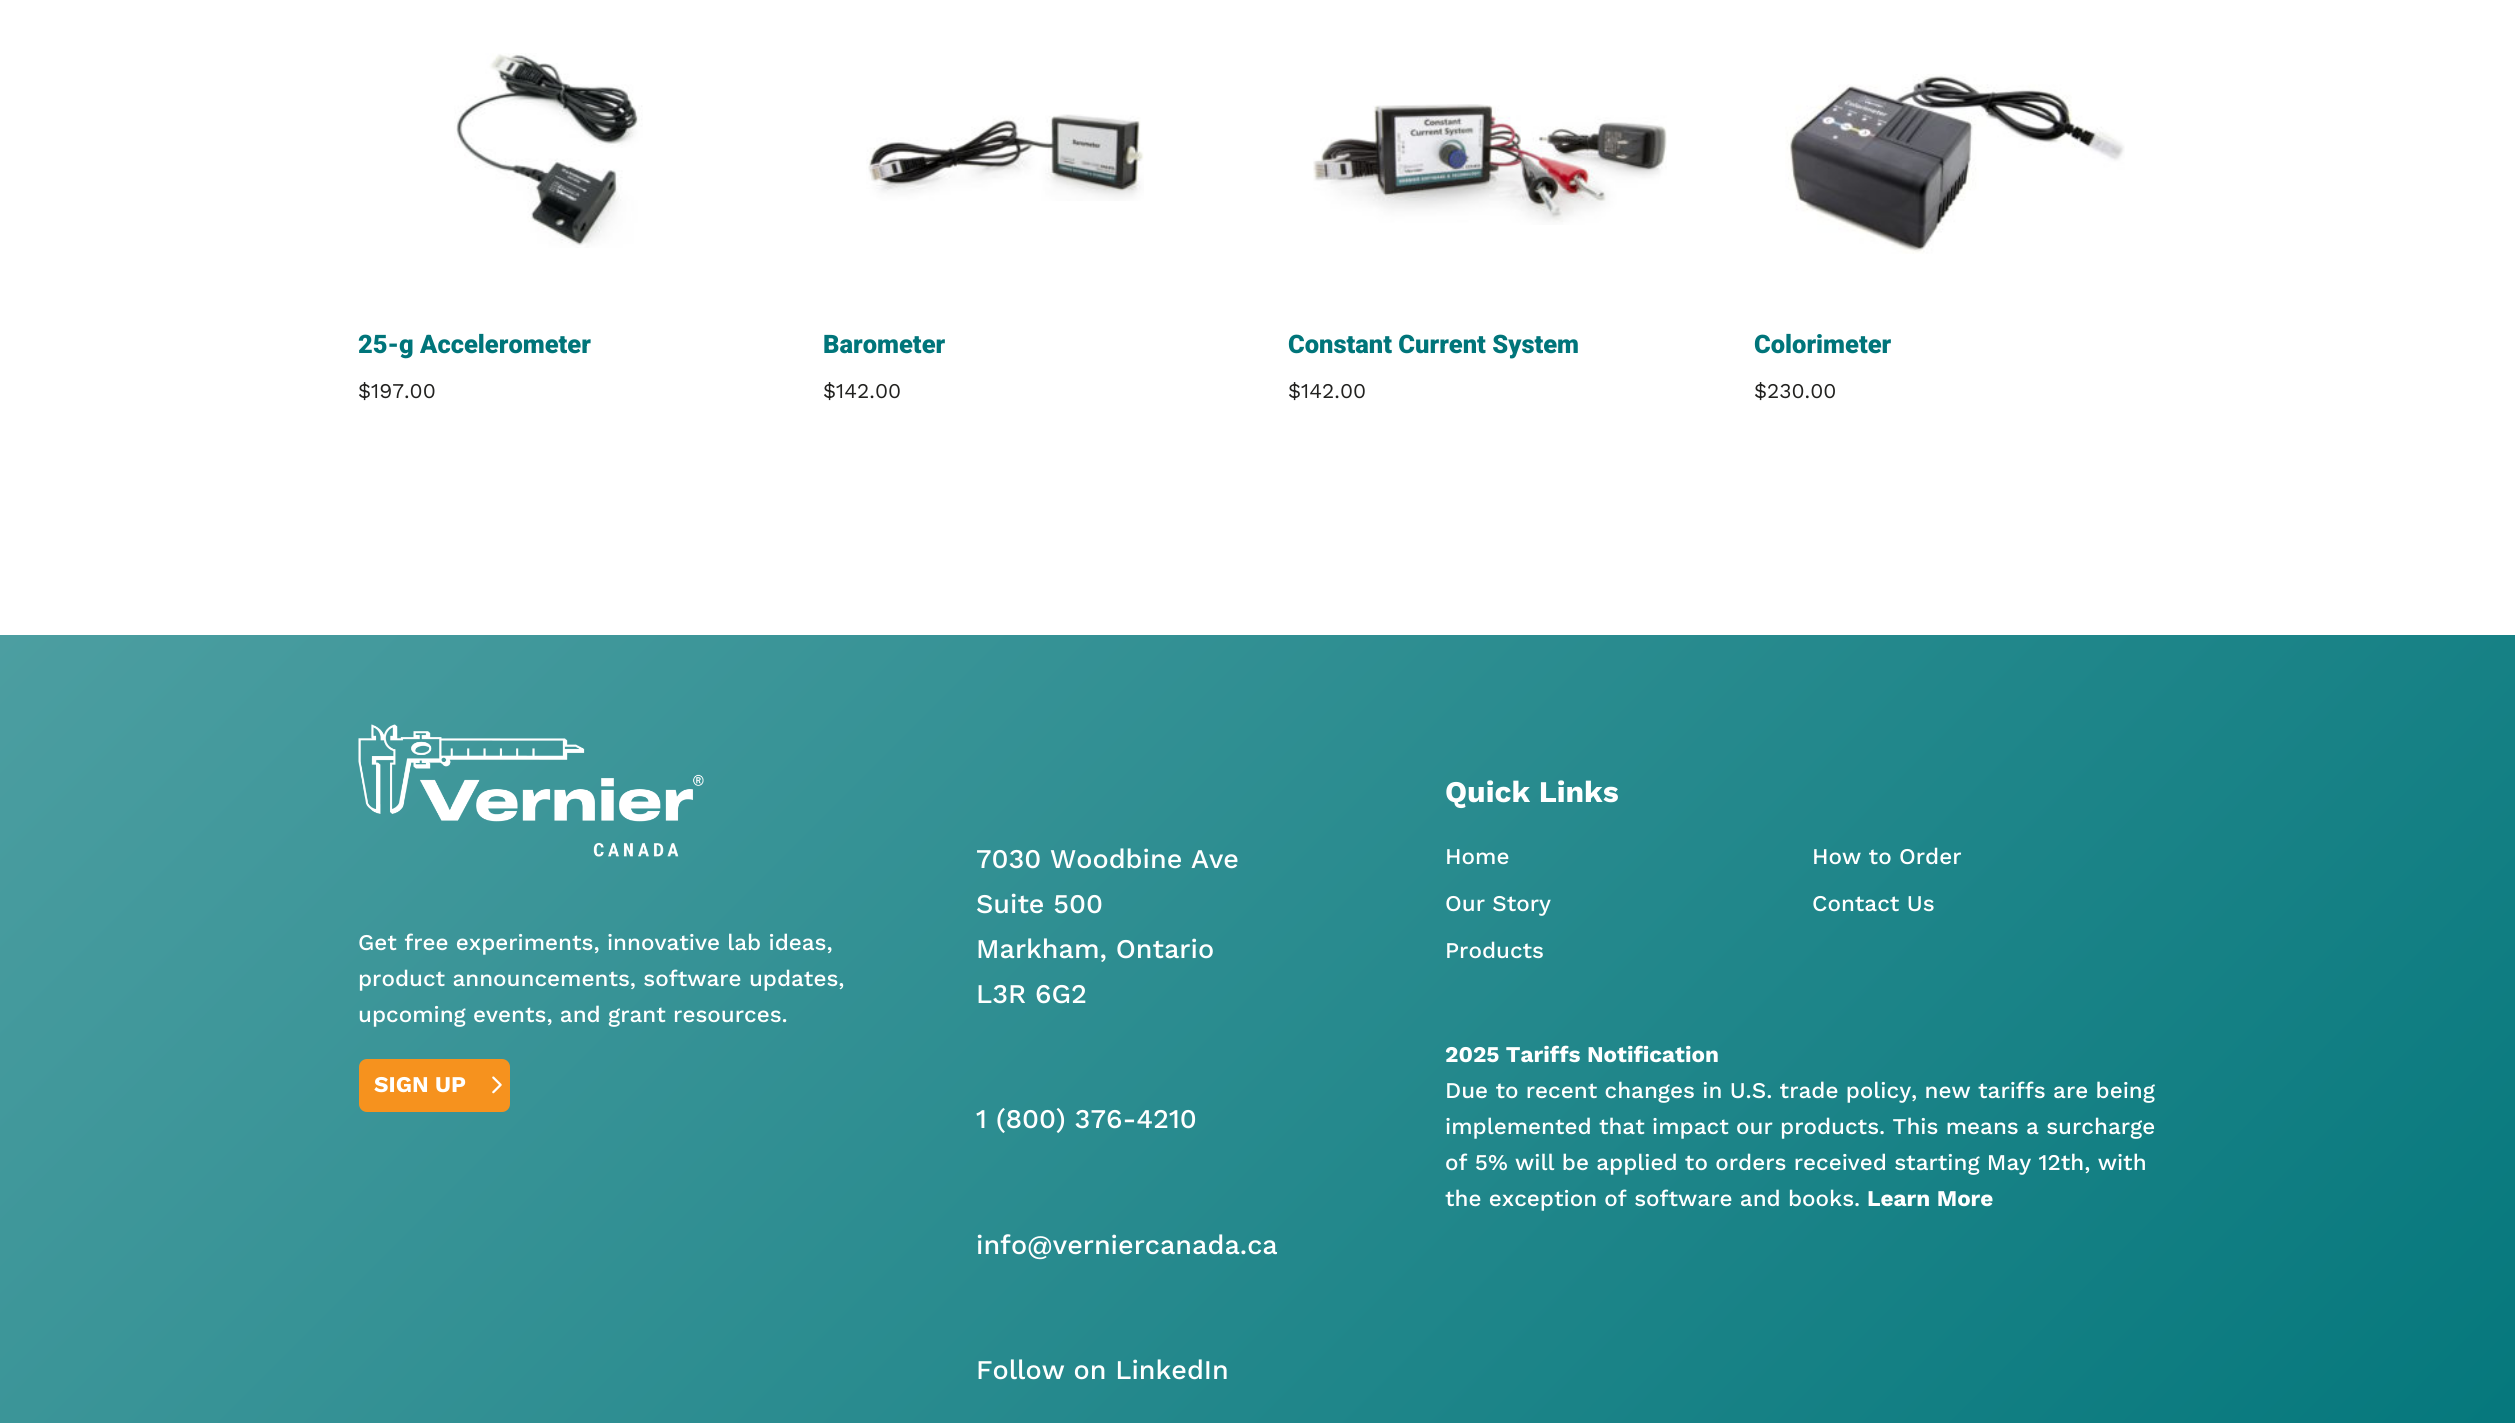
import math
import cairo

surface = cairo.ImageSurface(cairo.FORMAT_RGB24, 2515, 1423)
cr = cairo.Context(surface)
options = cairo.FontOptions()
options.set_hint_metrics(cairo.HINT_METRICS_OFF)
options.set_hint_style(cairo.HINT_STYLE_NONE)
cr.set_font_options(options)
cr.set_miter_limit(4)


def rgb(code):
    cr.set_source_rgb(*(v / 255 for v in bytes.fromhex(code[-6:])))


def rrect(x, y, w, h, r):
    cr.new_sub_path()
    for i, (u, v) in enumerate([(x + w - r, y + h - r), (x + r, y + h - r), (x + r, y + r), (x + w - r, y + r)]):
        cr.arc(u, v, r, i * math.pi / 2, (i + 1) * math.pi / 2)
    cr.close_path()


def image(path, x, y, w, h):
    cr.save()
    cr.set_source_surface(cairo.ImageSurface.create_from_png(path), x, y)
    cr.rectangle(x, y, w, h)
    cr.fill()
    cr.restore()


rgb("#ffffff")
cr.paint()
image("img/1.png", 454, 53, 189, 195)
image("img/2.png", 866, 114, 278, 87)
image("img/3.png", 1313, 104, 354, 121)
image("img/4.png", 1785, 74, 340, 180)
gradient = cairo.LinearGradient(2147, 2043, 369, 266)
gradient.add_color_stop_rgba(0, 0, 0.459, 0.478, 1)
gradient.add_color_stop_rgba(1, 0.298, 0.62, 0.631, 1)
cr.set_source(gradient)
cr.rectangle(0, 635, 2515, 788)
cr.fill()
image("img/5.png", 358, 724, 346, 133)
rgb("#f6921e")
rrect(359, 1059, 151, 53, 8)
cr.fill()
image("img/6.png", 492, 1076, 10, 18)
cr.select_font_face("Roboto Black")
cr.set_font_size(25.5)
rgb("#00757a")
cr.move_to(358, 353)
cr.show_text("25-g Accelerometer")
cr.select_font_face("Work Sans")
cr.set_font_size(21)
rgb("#222220")
cr.move_to(358, 398)
cr.show_text("$197.00")
cr.select_font_face("Roboto Black")
cr.set_font_size(25.5)
rgb("#00757a")
cr.move_to(823, 353)
cr.show_text("Barometer")
cr.select_font_face("Work Sans")
cr.set_font_size(21)
rgb("#222220")
cr.move_to(823, 398)
cr.show_text("$142.00")
cr.select_font_face("Roboto Black")
cr.set_font_size(25.5)
rgb("#00757a")
cr.move_to(1288, 353)
cr.show_text("Constant Current System")
cr.select_font_face("Work Sans")
cr.set_font_size(21)
rgb("#222220")
cr.move_to(1288, 398)
cr.show_text("$142.00")
cr.select_font_face("Roboto Black")
cr.set_font_size(25.5)
rgb("#00757a")
cr.move_to(1754, 353)
cr.show_text("Colorimeter")
cr.select_font_face("Work Sans")
cr.set_font_size(21)
rgb("#222220")
cr.move_to(1754, 398)
cr.show_text("$230.00")
cr.select_font_face("Work Sans Medium")
cr.set_font_size(22.5)
rgb("#ffffff")
for x, y, s in [
    (358, 950, "Get free experiments, innovative lab ideas,"),
    (358, 986, "product announcements, software updates,"),
    (358, 1022, "upcoming events, and grant resources."),
]:
    cr.move_to(x, y)
    cr.show_text(s)
cr.select_font_face("Work Sans", cairo.FONT_SLANT_NORMAL, cairo.FONT_WEIGHT_BOLD)
cr.move_to(374, 1092)
cr.show_text("SIGN UP")
cr.select_font_face("Work Sans Medium")
cr.set_font_size(27)
for x, y, s in [
    (976, 868, "7030 Woodbine Ave"),
    (976, 913, "Suite 500"),
    (976, 958, "Markham, Ontario"),
    (976, 1003, "L3R 6G2"),
    (976, 1128, "1 (800) 376-4210"),
    (976, 1254, "info@verniercanada.ca"),
    (976, 1379, "Follow on LinkedIn"),
]:
    cr.move_to(x, y)
    cr.show_text(s)
cr.select_font_face("Work Sans", cairo.FONT_SLANT_NORMAL, cairo.FONT_WEIGHT_BOLD)
cr.set_font_size(30)
cr.move_to(1445, 802)
cr.show_text("Quick Links")
cr.select_font_face("Work Sans Medium")
cr.set_font_size(22.5)
for x, y, s in [
    (1445, 864, "Home"),
    (1812, 864, "How to Order"),
    (1445, 911, "Our Story"),
    (1812, 911, "Contact Us"),
    (1445, 958, "Products"),
]:
    cr.move_to(x, y)
    cr.show_text(s)
cr.select_font_face("Work Sans", cairo.FONT_SLANT_NORMAL, cairo.FONT_WEIGHT_BOLD)
cr.move_to(1445, 1062)
cr.show_text("2025 Tariffs Notification")
cr.select_font_face("Work Sans Medium")
for x, y, s in [
    (1445, 1098, "Due to recent changes in U.S. trade policy, new tariffs are being"),
    (1445, 1134, "implemented that impact our products. This means a surcharge"),
    (1445, 1170, "of 5% will be applied to orders received starting May 12th, with"),
    (1445, 1206, "the exception of software and books."),
]:
    cr.move_to(x, y)
    cr.show_text(s)
cr.select_font_face("Work Sans", cairo.FONT_SLANT_NORMAL, cairo.FONT_WEIGHT_BOLD)
cr.move_to(1867, 1206)
cr.show_text("Learn More")
surface.write_to_png("page.png")
